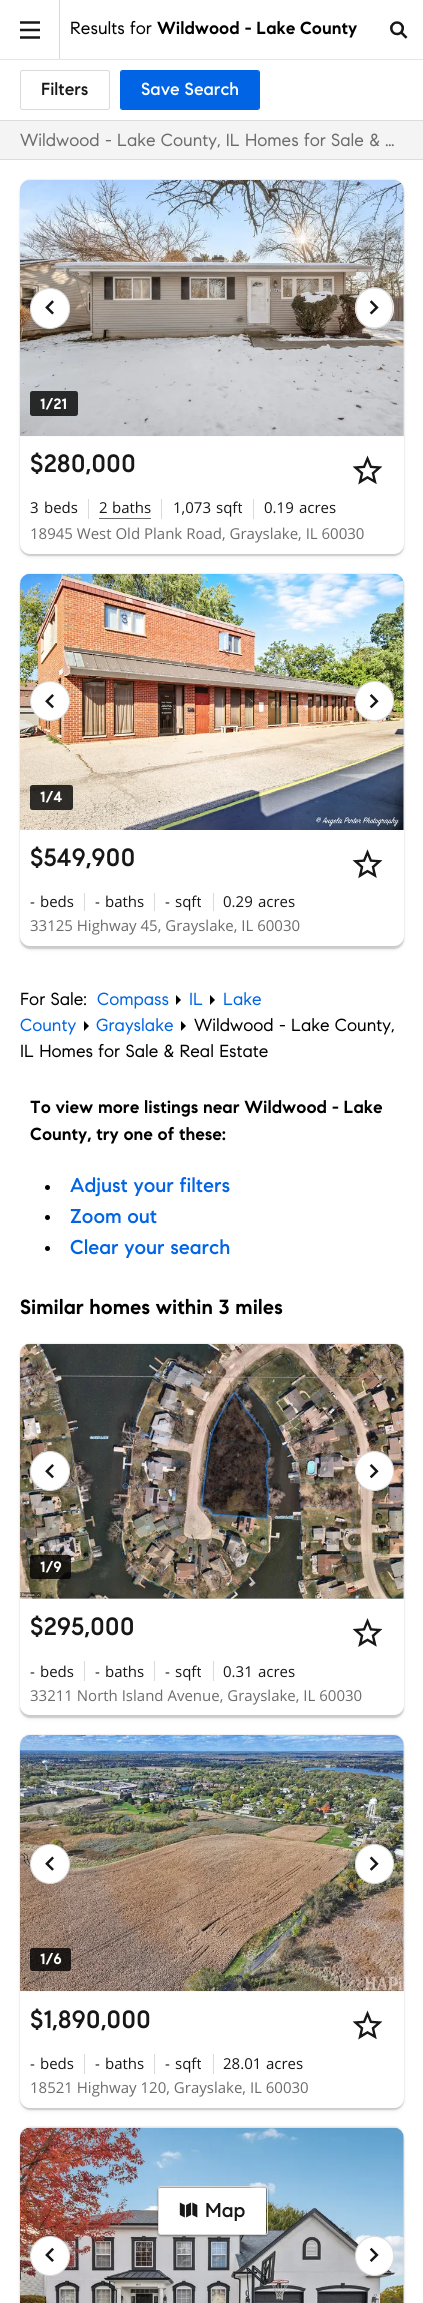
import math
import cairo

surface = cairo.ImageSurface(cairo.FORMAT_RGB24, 423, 2303)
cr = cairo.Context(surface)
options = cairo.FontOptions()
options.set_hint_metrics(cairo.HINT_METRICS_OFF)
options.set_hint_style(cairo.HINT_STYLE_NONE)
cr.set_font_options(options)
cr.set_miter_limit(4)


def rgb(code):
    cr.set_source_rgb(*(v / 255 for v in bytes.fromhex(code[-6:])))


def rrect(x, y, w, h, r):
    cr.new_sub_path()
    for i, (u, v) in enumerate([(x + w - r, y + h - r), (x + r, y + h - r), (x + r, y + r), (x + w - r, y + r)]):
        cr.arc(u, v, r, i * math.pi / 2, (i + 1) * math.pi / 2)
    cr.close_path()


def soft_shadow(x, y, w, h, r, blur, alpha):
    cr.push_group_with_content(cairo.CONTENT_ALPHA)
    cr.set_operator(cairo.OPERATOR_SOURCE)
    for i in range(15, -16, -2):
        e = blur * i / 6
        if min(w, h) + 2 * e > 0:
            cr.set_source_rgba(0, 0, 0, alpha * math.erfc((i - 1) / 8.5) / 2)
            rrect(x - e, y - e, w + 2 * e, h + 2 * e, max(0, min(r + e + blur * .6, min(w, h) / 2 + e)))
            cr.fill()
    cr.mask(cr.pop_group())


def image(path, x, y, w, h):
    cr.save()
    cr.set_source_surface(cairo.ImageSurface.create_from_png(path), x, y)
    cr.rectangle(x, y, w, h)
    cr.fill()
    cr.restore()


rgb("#ffffff")
cr.paint()
rgb("#e6e6e6")
cr.rectangle(0, 59, 423, 1)
cr.fill()
rgb("#d9d9d9")
cr.rectangle(59, 0, 1, 59)
cr.fill()
image("img/1.png", 20, 21, 20, 18)
image("img/2.png", 390, 21, 18, 18)
rrect(20.5, 70.5, 89, 39, 2)
rgb("#dadada")
cr.set_line_width(1)
cr.stroke()
rgb("#0064e5")
rrect(121, 71, 138, 38, 1)
cr.fill()
rrect(120.5, 70.5, 139, 39, 2)
cr.stroke()
for x, y, w, h, color in [
    (0, 121, 423, 38, "#f4f4f4"),
    (0, 120, 423, 1, "#dcdcdc"),
    (0, 159, 423, 1, "#dcdcdc"),
]:
    rgb(color)
    cr.rectangle(x, y, w, h)
    cr.fill()
rgb("#000000")
soft_shadow(20, 179, 384, 374, 10, 0.5, 0.06)
soft_shadow(20, 183, 384, 373, 10, 0.5, 0.14)
soft_shadow(21, 185, 382, 371, 9, 2.5, 0.1)
rgb("#ffffff")
rrect(20, 180, 384, 374, 10)
cr.fill()
rgb("#dadada")
cr.new_path()
cr.move_to(30, 180)
cr.line_to(394, 180)
cr.curve_to(399.5, 180, 404, 184.5, 404, 190)
cr.line_to(404, 436)
cr.line_to(20, 436)
cr.line_to(20, 190)
cr.curve_to(20, 184.5, 24.5, 180, 30, 180)
cr.close_path()
cr.fill()
image("img/3.png", 20, 180, 384, 257)
rgb("#ffffff")
rrect(30.5, 288.5, 39, 40, 19.5)
cr.fill_preserve()
rgb("#dadada")
cr.stroke()
image("img/4.png", 45, 300, 9, 15)
rgb("#ffffff")
cr.new_path()
cr.move_to(374.5, 287.5)
cr.curve_to(385.5, 287.5, 394, 296.5, 394, 308)
cr.curve_to(394, 319.5, 385.5, 328.5, 374.5, 328.5)
cr.curve_to(363.5, 328.5, 355, 319.5, 355, 308)
cr.curve_to(355, 296.5, 363.5, 287.5, 374.5, 287.5)
cr.close_path()
cr.fill()
cr.new_path()
cr.move_to(374.5, 288)
cr.curve_to(399, 288, 399, 328, 374.5, 328)
cr.curve_to(349.5, 328, 349.5, 288, 374.5, 288)
cr.close_path()
rgb("#dadada")
cr.set_line_width(1.2)
cr.stroke()
image("img/5.png", 369, 300, 10, 15)
cr.set_source_rgba(0, 0, 0, 0.8)
rrect(30, 391, 48, 25, 2.5)
cr.fill()
image("img/6.png", 352, 455, 31, 30)
for x, y, w, h, color in [
    (88, 499, 1, 20, "#dadada"),
    (99, 518, 52, 1, "#6c6c6c"),
    (161, 499, 1, 20, "#dadada"),
    (253, 499, 1, 20, "#dadada"),
]:
    rgb(color)
    cr.rectangle(x, y, w, h)
    cr.fill()
rgb("#000000")
soft_shadow(20, 573, 384, 372, 10, 0.5, 0.06)
soft_shadow(20, 576, 384, 373, 10, 0.5, 0.14)
soft_shadow(21, 579, 382, 370, 9, 2.5, 0.1)
rgb("#ffffff")
rrect(20, 574, 384, 372, 10)
cr.fill()
rgb("#dadada")
cr.new_path()
cr.move_to(30, 574)
cr.line_to(394, 574)
cr.curve_to(399.5, 574, 404, 578.5, 404, 584)
cr.line_to(404, 830)
cr.line_to(20, 830)
cr.line_to(20, 584)
cr.curve_to(20, 578.5, 24.5, 574, 30, 574)
cr.close_path()
cr.fill()
image("img/7.png", 20, 574, 384, 256)
rgb("#ffffff")
cr.arc(50, 701, 19.5, 0, 2 * math.pi)
cr.fill_preserve()
rgb("#dadada")
cr.set_line_width(1)
cr.stroke()
image("img/8.png", 45, 694, 9, 15)
rgb("#ffffff")
rrect(355.5, 681.5, 38, 39, 19)
cr.fill_preserve()
rgb("#dadada")
cr.stroke()
image("img/9.png", 369, 694, 10, 15)
cr.set_source_rgba(0, 0, 0, 0.8)
rrect(30, 785, 43, 25, 2.5)
cr.fill()
image("img/10.png", 352, 849, 31, 30)
for x, y, w, h, color in [
    (84, 893, 1, 18, "#dadada"),
    (154, 893, 1, 18, "#dadada"),
    (213, 893, 1, 18, "#dadada"),
]:
    rgb(color)
    cr.rectangle(x, y, w, h)
    cr.fill()
rgb("#000000")
cr.new_path()
cr.move_to(210, 1005)
cr.line_to(210, 995)
cr.line_to(215, 1000)
cr.close_path()
cr.fill()
cr.new_path()
cr.move_to(176, 1005)
cr.line_to(176, 995)
cr.line_to(181, 1000)
cr.close_path()
cr.fill()
cr.new_path()
cr.move_to(181, 1031)
cr.line_to(181, 1021)
cr.line_to(186, 1026)
cr.close_path()
cr.fill()
cr.new_path()
cr.move_to(84, 1031)
cr.line_to(84, 1021)
cr.line_to(89, 1026)
cr.close_path()
cr.fill()
cr.arc(47.5, 1187.5, 2.5, 0, 2 * math.pi)
cr.fill()
cr.arc(47.5, 1217.5, 2.5, 0, 2 * math.pi)
cr.fill()
cr.arc(47.5, 1248.5, 2.5, 0, 2 * math.pi)
cr.fill()
rgb("#000000")
soft_shadow(20, 1343, 384, 371, 10, 0.5, 0.06)
soft_shadow(20, 1346, 384, 372, 10, 0.5, 0.14)
soft_shadow(21, 1349, 382, 369, 9, 2.5, 0.1)
rgb("#ffffff")
rrect(20, 1344, 384, 371, 10)
cr.fill()
rgb("#dadada")
cr.new_path()
cr.move_to(30, 1344)
cr.line_to(394, 1344)
cr.curve_to(399.5, 1344, 404, 1348.5, 404, 1354)
cr.line_to(404, 1599)
cr.line_to(20, 1599)
cr.line_to(20, 1354)
cr.curve_to(20, 1348.5, 24.5, 1344, 30, 1344)
cr.close_path()
cr.fill()
image("img/11.png", 20, 1344, 384, 255)
rgb("#ffffff")
cr.arc(50, 1471, 19.5, 0, 2 * math.pi)
cr.fill_preserve()
rgb("#dadada")
cr.stroke()
image("img/8.png", 45, 1464, 9, 15)
rgb("#ffffff")
rrect(355.5, 1451.5, 38, 39, 19)
cr.fill_preserve()
rgb("#dadada")
cr.stroke()
image("img/9.png", 369, 1464, 10, 15)
cr.set_source_rgba(0, 0, 0, 0.8)
rrect(30, 1555, 41, 24, 2.5)
cr.fill()
image("img/12.png", 352, 1618, 31, 29)
for x, y, w, h, color in [
    (84, 1661, 1, 20, "#dadada"),
    (154, 1661, 1, 20, "#dadada"),
    (213, 1661, 1, 20, "#dadada"),
]:
    rgb(color)
    cr.rectangle(x, y, w, h)
    cr.fill()
rgb("#000000")
soft_shadow(20, 1734, 384, 372, 10, 0.5, 0.06)
soft_shadow(20, 1738, 384, 372, 10, 0.5, 0.14)
soft_shadow(21, 1740, 382, 370, 9, 2.5, 0.1)
rgb("#ffffff")
rrect(20, 1735, 384, 373, 10)
cr.fill()
rgb("#dadada")
cr.new_path()
cr.move_to(30, 1735)
cr.line_to(394, 1735)
cr.curve_to(399.5, 1735, 404, 1739.5, 404, 1745)
cr.line_to(404, 1991)
cr.line_to(20, 1991)
cr.line_to(20, 1745)
cr.curve_to(20, 1739.5, 24.5, 1735, 30, 1735)
cr.close_path()
cr.fill()
image("img/13.png", 20, 1735, 384, 257)
rgb("#ffffff")
cr.arc(50, 1864, 19.5, 0, 2 * math.pi)
cr.fill_preserve()
rgb("#dadada")
cr.stroke()
image("img/14.png", 45, 1856, 9, 15)
rgb("#ffffff")
rrect(355.5, 1844.5, 38, 39, 19)
cr.fill_preserve()
rgb("#dadada")
cr.stroke()
image("img/15.png", 369, 1856, 10, 15)
cr.set_source_rgba(0, 0, 0, 0.8)
rrect(30, 1948, 41, 23, 2.5)
cr.fill()
image("img/16.png", 352, 2010, 31, 30)
for x, y, w, h, color in [
    (84, 2054, 1, 20, "#dadada"),
    (154, 2054, 1, 20, "#dadada"),
    (213, 2054, 1, 20, "#dadada"),
]:
    rgb(color)
    cr.rectangle(x, y, w, h)
    cr.fill()
rgb("#000000")
soft_shadow(20, 2126, 384, 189, 10, 0.5, 0.06)
soft_shadow(20, 2130, 384, 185, 10, 0.5, 0.14)
soft_shadow(21, 2133, 382, 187, 9, 2.5, 0.1)
rgb("#dadada")
cr.new_path()
cr.move_to(30, 2128)
cr.line_to(394, 2128)
cr.curve_to(399.5, 2128, 404, 2132.5, 404, 2138)
cr.line_to(404, 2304)
cr.line_to(20, 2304)
cr.line_to(20, 2138)
cr.curve_to(20, 2132.5, 24.5, 2128, 30, 2128)
cr.close_path()
cr.fill()
image("img/17.png", 20, 2127, 384, 176)
rgb("#ffffff")
cr.arc(50, 2256, 19.5, 0, 2 * math.pi)
cr.fill_preserve()
rgb("#dadada")
cr.stroke()
image("img/18.png", 45, 2247, 9, 15)
rgb("#ffffff")
rrect(355.5, 2236.5, 38, 39, 19)
cr.fill_preserve()
rgb("#dadada")
cr.stroke()
image("img/19.png", 369, 2247, 10, 15)
rgb("#000000")
soft_shadow(158, 2188, 110, 48, 2.5, 1, 0.4)
rgb("#ffffff")
rrect(159, 2188, 107, 46, 1)
cr.fill()
rrect(158.5, 2186.5, 109, 48, 2)
rgb("#dadada")
cr.stroke()
image("img/20.png", 179, 2202, 19, 16)
cr.select_font_face("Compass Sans")
cr.set_font_size(17.5)
rgb("#000000")
cr.move_to(70, 34)
cr.show_text("Results for")
cr.select_font_face("Compass Sans", cairo.FONT_SLANT_NORMAL, cairo.FONT_WEIGHT_BOLD)
cr.move_to(157, 34)
cr.show_text("Wildwood - Lake County")
cr.select_font_face("Compass Sans Medium")
rgb("#171717")
cr.move_to(41, 95)
cr.show_text("Filters")
rgb("#ffffff")
cr.move_to(141, 95)
cr.show_text("Save Search")
cr.select_font_face("Compass Sans")
rgb("#6c6c6c")
cr.move_to(20, 146)
cr.show_text("Wildwood - Lake County, IL Homes for Sale & …")
cr.select_font_face("Compass Sans", cairo.FONT_SLANT_NORMAL, cairo.FONT_WEIGHT_BOLD)
cr.set_font_size(15)
rgb("#ffffff")
cr.move_to(40, 409)
cr.show_text("1/21")
cr.select_font_face("Compass Sans Medium")
cr.set_font_size(25)
rgb("#171717")
cr.move_to(30, 472)
cr.show_text("$280,000")
cr.select_font_face("Open Sans")
cr.set_font_size(15)
for x, y, s in [
    (30, 513, "3"),
    (44, 513, "beds"),
    (99, 513, "2"),
    (112, 513, "baths"),
    (173, 513, "1,073"),
    (216, 513, "sqft"),
    (264, 513, "0.19"),
    (299, 513, "acres"),
]:
    cr.move_to(x, y)
    cr.show_text(s)
rgb("#6c6c6c")
cr.move_to(30, 539)
cr.show_text("18945 West Old Plank Road, Grayslake, IL 60030")
cr.select_font_face("Compass Sans", cairo.FONT_SLANT_NORMAL, cairo.FONT_WEIGHT_BOLD)
rgb("#ffffff")
cr.move_to(40, 802)
cr.show_text("1/4")
cr.select_font_face("Compass Sans Medium")
cr.set_font_size(25)
rgb("#171717")
cr.move_to(30, 866)
cr.show_text("$549,900")
cr.select_font_face("Open Sans")
cr.set_font_size(15)
for x, y, s in [
    (30, 907, "-"),
    (40, 907, "beds"),
    (95, 907, "-"),
    (105, 907, "baths"),
    (165, 907, "-"),
    (175, 907, "sqft"),
    (223, 907, "0.29"),
    (258, 907, "acres"),
]:
    cr.move_to(x, y)
    cr.show_text(s)
rgb("#6c6c6c")
cr.move_to(30, 931)
cr.show_text("33125 Highway 45, Grayslake, IL 60030")
cr.select_font_face("Compass Sans")
cr.set_font_size(17.5)
rgb("#0064e5")
for x, y, s in [
    (223, 1005, "Lake"),
    (20, 1031, "County"),
    (97, 1005, "Compass"),
    (189, 1005, "IL"),
]:
    cr.move_to(x, y)
    cr.show_text(s)
rgb("#000000")
cr.move_to(194, 1031)
cr.show_text("Wildwood - Lake County,")
cr.move_to(20, 1057)
cr.show_text("IL Homes for Sale & Real Estate")
rgb("#0064e5")
cr.move_to(96, 1031)
cr.show_text("Grayslake")
rgb("#000000")
cr.move_to(20, 1005)
cr.show_text("For Sale:")
cr.select_font_face("Compass Sans", cairo.FONT_SLANT_NORMAL, cairo.FONT_WEIGHT_BOLD)
cr.move_to(30, 1113)
cr.show_text("To view more listings near Wildwood - Lake")
cr.move_to(30, 1140)
cr.show_text("County, try one of these:")
cr.select_font_face("Compass Sans Medium")
cr.set_font_size(20)
rgb("#0064e5")
for x, y, s in [
    (70, 1192, "Adjust your filters"),
    (70, 1223, "Zoom out"),
    (70, 1254, "Clear your search"),
]:
    cr.move_to(x, y)
    cr.show_text(s)
cr.select_font_face("Compass Sans", cairo.FONT_SLANT_NORMAL, cairo.FONT_WEIGHT_BOLD)
cr.set_font_size(20.5)
rgb("#000000")
cr.move_to(20, 1314)
cr.show_text("Similar homes within 3 miles")
cr.set_font_size(15)
rgb("#ffffff")
cr.move_to(40, 1572)
cr.show_text("1/9")
cr.select_font_face("Compass Sans Medium")
cr.set_font_size(25)
rgb("#171717")
cr.move_to(30, 1635)
cr.show_text("$295,000")
cr.select_font_face("Open Sans")
cr.set_font_size(15)
for x, y, s in [
    (30, 1677, "-"),
    (40, 1677, "beds"),
    (95, 1677, "-"),
    (105, 1677, "baths"),
    (165, 1677, "-"),
    (175, 1677, "sqft"),
    (223, 1677, "0.31"),
    (258, 1677, "acres"),
]:
    cr.move_to(x, y)
    cr.show_text(s)
rgb("#6c6c6c")
cr.move_to(30, 1701)
cr.show_text("33211 North Island Avenue, Grayslake, IL 60030")
cr.select_font_face("Compass Sans", cairo.FONT_SLANT_NORMAL, cairo.FONT_WEIGHT_BOLD)
rgb("#ffffff")
cr.move_to(40, 1964)
cr.show_text("1/6")
cr.select_font_face("Compass Sans Medium")
cr.set_font_size(25)
rgb("#171717")
cr.move_to(30, 2028)
cr.show_text("$1,890,000")
cr.select_font_face("Open Sans")
cr.set_font_size(15)
for x, y, s in [
    (30, 2069, "-"),
    (40, 2069, "beds"),
    (95, 2069, "-"),
    (105, 2069, "baths"),
    (165, 2069, "-"),
    (175, 2069, "sqft"),
    (223, 2069, "28.01"),
    (266, 2069, "acres"),
]:
    cr.move_to(x, y)
    cr.show_text(s)
rgb("#6c6c6c")
cr.move_to(30, 2093)
cr.show_text("18521 Highway 120, Grayslake, IL 60030")
cr.select_font_face("Compass Sans Medium")
cr.set_font_size(20)
rgb("#171717")
cr.move_to(205, 2217)
cr.show_text("Map")
surface.write_to_png("page.png")
